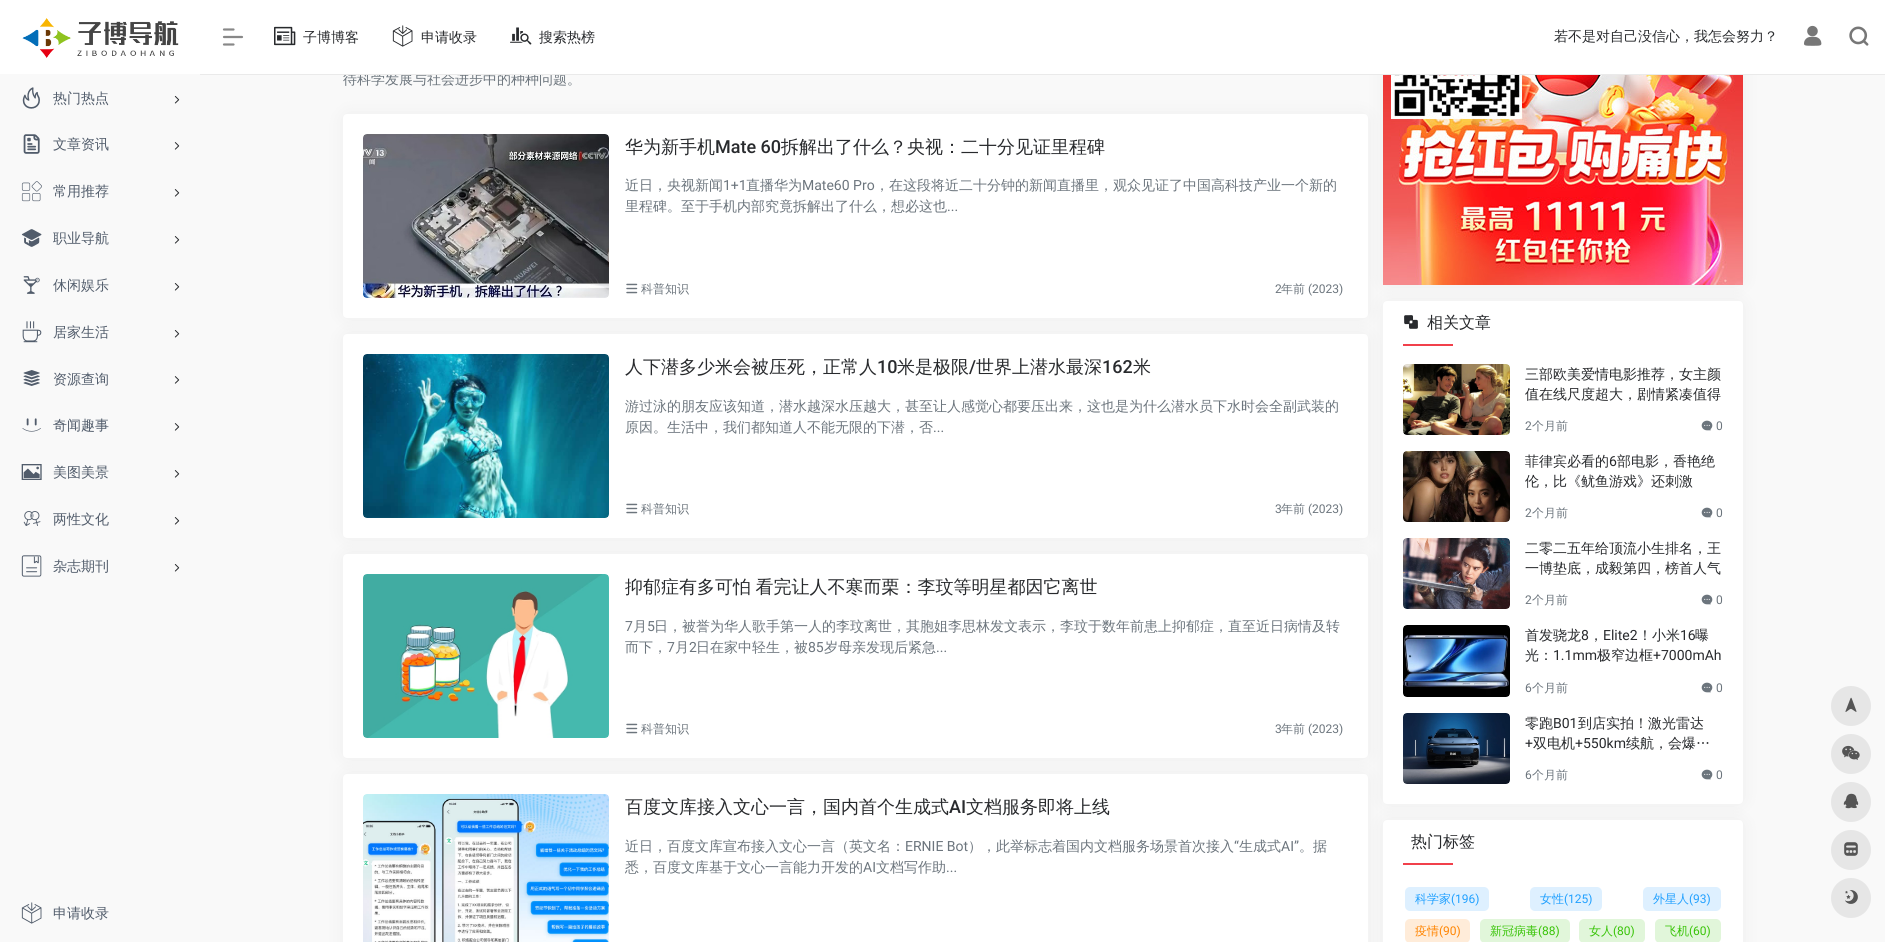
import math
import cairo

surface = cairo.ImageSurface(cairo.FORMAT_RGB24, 1885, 942)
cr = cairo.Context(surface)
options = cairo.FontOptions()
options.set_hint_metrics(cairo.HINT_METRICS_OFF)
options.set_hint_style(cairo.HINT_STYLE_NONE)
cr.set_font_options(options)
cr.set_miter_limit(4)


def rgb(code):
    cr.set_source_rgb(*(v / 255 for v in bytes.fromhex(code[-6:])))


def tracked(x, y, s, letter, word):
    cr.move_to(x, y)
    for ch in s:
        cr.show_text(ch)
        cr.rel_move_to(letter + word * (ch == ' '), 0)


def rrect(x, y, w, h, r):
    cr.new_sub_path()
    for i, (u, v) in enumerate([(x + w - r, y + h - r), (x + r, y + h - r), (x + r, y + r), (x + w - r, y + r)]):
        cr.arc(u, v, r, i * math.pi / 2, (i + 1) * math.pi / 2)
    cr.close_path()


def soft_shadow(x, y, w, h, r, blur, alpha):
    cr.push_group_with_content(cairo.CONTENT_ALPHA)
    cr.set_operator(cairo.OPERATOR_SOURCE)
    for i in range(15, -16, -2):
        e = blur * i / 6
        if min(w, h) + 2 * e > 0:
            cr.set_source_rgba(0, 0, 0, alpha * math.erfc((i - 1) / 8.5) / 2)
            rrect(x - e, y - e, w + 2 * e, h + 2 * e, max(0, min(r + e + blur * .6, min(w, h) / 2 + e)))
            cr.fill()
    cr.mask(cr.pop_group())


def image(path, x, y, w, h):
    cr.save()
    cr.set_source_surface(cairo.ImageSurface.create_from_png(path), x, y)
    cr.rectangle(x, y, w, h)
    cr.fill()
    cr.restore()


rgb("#f9f9f9")
cr.paint()
image("img/2.png", 22, 87, 18, 22)
image("img/3.png", 174, 95, 6, 9)
image("img/4.png", 23, 134, 17, 20)
image("img/5.png", 174, 142, 6, 8)
image("img/6.png", 21, 181, 21, 21)
image("img/7.png", 174, 189, 6, 8)
image("img/8.png", 21, 229, 21, 18)
image("img/9.png", 174, 236, 6, 8)
image("img/10.png", 23, 276, 17, 18)
image("img/11.png", 174, 283, 6, 8)
image("img/12.png", 22, 321, 20, 22)
image("img/13.png", 174, 330, 6, 8)
image("img/14.png", 23, 370, 17, 16)
image("img/15.png", 174, 376, 6, 8)
image("img/16.png", 22, 418, 19, 14)
image("img/17.png", 174, 423, 6, 8)
image("img/18.png", 21, 464, 21, 16)
image("img/19.png", 174, 470, 6, 8)
image("img/20.png", 23, 511, 18, 15)
image("img/21.png", 174, 517, 6, 8)
image("img/22.png", 21, 555, 21, 22)
image("img/23.png", 174, 564, 6, 8)
image("img/24.png", 21, 902, 21, 22)
rgb("#9e9e9e")
soft_shadow(348, 119, 1015, 194, 0, 10, 0.2)
rgb("#ffffff")
rrect(343, 114, 1025, 204, 4)
cr.fill()
image("img/30.png", 363, 134, 246, 164)
image("img/31.png", 626, 283, 12, 11)
rgb("#9e9e9e")
soft_shadow(348, 339, 1015, 194, 0, 10, 0.2)
rgb("#ffffff")
rrect(343, 334, 1025, 204, 4)
cr.fill()
image("img/32.png", 363, 354, 246, 164)
image("img/31.png", 626, 503, 12, 11)
rgb("#9e9e9e")
soft_shadow(348, 559, 1015, 194, 0, 10, 0.2)
rgb("#ffffff")
rrect(343, 554, 1025, 204, 4)
cr.fill()
image("img/33.png", 363, 574, 246, 164)
image("img/31.png", 626, 723, 12, 11)
rgb("#9e9e9e")
soft_shadow(348, 779, 1015, 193, 0, 10, 0.2)
rgb("#ffffff")
rrect(343, 774, 1025, 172, 4)
cr.fill()
image("img/34.png", 363, 794, 246, 148)
rgb("#9e9e9e")
soft_shadow(1388, 2, 350, 278, 0, 10, 0.2)
image("img/35.png", 1383, 75, 360, 210)
soft_shadow(1388, 306, 350, 493, 0, 10, 0.2)
rgb("#ffffff")
rrect(1383, 301, 360, 503, 4)
cr.fill()
image("img/36.png", 1404, 315, 14, 14)
rgb("#f1404b")
cr.rectangle(1403, 344, 50, 2)
cr.fill()
image("img/37.png", 1403, 364, 107, 71)
image("img/38.png", 1701, 420, 12, 11)
image("img/39.png", 1403, 451, 107, 71)
image("img/38.png", 1701, 507, 12, 11)
image("img/40.png", 1403, 538, 107, 71)
image("img/38.png", 1701, 594, 12, 11)
image("img/41.png", 1403, 625, 107, 72)
image("img/38.png", 1701, 682, 12, 11)
image("img/42.png", 1403, 713, 107, 71)
image("img/38.png", 1701, 769, 12, 11)
rgb("#9e9e9e")
soft_shadow(1388, 825, 350, 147, 0, 10, 0.2)
rgb("#ffffff")
rrect(1383, 820, 360, 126, 4)
cr.fill()
rgb("#f1404b")
cr.rectangle(1403, 863, 50, 2)
cr.fill()
rgb("#def0ff")
rrect(1405, 887, 84, 24, 5)
cr.fill()
rrect(1530, 887, 72, 24, 5)
cr.fill()
rrect(1643, 887, 78, 24, 5)
cr.fill()
rgb("#ffecd9")
rrect(1405, 919, 65, 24, 5)
cr.fill()
rgb("#e1f6da")
rrect(1480, 919, 90, 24, 5)
cr.fill()
rrect(1579, 919, 66, 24, 5)
cr.fill()
rrect(1655, 919, 66, 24, 5)
cr.fill()
rgb("#e6e6e6")
cr.arc(1851, 706, 20, 0, 2 * math.pi)
cr.fill()
image("img/43.png", 1845, 697, 12, 15)
cr.arc(1851, 754, 20, 0, 2 * math.pi)
cr.fill()
image("img/44.png", 1842, 745, 18, 15)
cr.arc(1851, 802, 20, 0, 2 * math.pi)
cr.fill()
image("img/45.png", 1843, 793, 16, 16)
cr.arc(1851, 850, 20, 0, 2 * math.pi)
cr.fill()
image("img/46.png", 1844, 842, 14, 14)
cr.arc(1851, 898, 20, 0, 2 * math.pi)
cr.fill()
image("img/47.png", 1845, 890, 13, 14)
cr.select_font_face("WenQuanYi Zen Hei Medium")
cr.set_font_size(14)
rgb("#515c6b")
for x, y, s in [
    (53, 103, "热门热点"),
    (53, 149, "文章资讯"),
    (53, 196, "常用推荐"),
    (53, 243, "职业导航"),
    (53, 290, "休闲娱乐"),
    (53, 337, "居家生活"),
    (53, 384, "资源查询"),
    (53, 430, "奇闻趣事"),
    (53, 477, "美图美景"),
    (53, 524, "两性文化"),
    (53, 571, "杂志期刊"),
    (53, 918, "申请收录"),
]:
    cr.move_to(x, y)
    cr.show_text(s)
rgb("#6c757d")
cr.move_to(343, 84)
cr.show_text("待科学发展与社会进步中的种种问题。")
rgb("#ffffff")
cr.rectangle(0, 0, 1885, 74)
cr.fill()
image("img/1.png", 22, 18, 157, 40)
rgb("#282a2d")
cr.move_to(1554, 41)
cr.show_text("若不是对自己没信心，我怎会努力？")
image("img/29.png", 1849, 26, 20, 20)
image("img/28.png", 1804, 25, 18, 21)
cr.move_to(539, 42)
cr.show_text("搜索热榜")
image("img/27.png", 510, 27, 22, 18)
cr.move_to(421, 42)
cr.show_text("申请收录")
image("img/26.png", 392, 25, 21, 22)
cr.move_to(303, 42)
cr.show_text("子博博客")
image("img/25.png", 274, 26, 22, 20)
cr.new_path()
cr.move_to(224, 29.5)
cr.line_to(233.5, 29.5)
cr.move_to(224, 37)
cr.line_to(242, 37)
cr.move_to(224, 44.5)
cr.line_to(233.5, 44.5)
rgb("#888888")
cr.set_line_width(2.2)
cr.set_line_cap(cairo.LINE_CAP_ROUND)
cr.set_line_join(cairo.LINE_JOIN_ROUND)
cr.stroke()
rgb("#eaeaea")
cr.rectangle(200, 74, 1685, 1)
cr.fill()
cr.set_font_size(18)
rgb("#282a2d")
cr.move_to(625, 153)
cr.show_text("华为新手机")
cr.select_font_face("Roboto Medium")
cr.move_to(715, 153)
cr.show_text("Mate 60")
cr.select_font_face("WenQuanYi Zen Hei Medium")
cr.move_to(781, 153)
cr.show_text("拆解出了什么？央视：二十分见证里程碑")
cr.set_font_size(14)
rgb("#6c757d")
cr.move_to(625, 190)
cr.show_text("近日，央视新闻")
cr.select_font_face("Roboto")
cr.move_to(723, 190)
cr.show_text("1+1")
cr.select_font_face("WenQuanYi Zen Hei Medium")
cr.move_to(746, 190)
cr.show_text("直播华为")
cr.select_font_face("Roboto")
cr.move_to(802, 190)
cr.show_text("Mate60 Pro")
cr.select_font_face("WenQuanYi Zen Hei Medium")
cr.move_to(875, 190)
cr.show_text("，在这段将近二十分钟的新闻直播里，观众见证了中国高科技产业一个新的")
cr.move_to(625, 211)
cr.show_text("里程碑。至于手机内部究竟拆解出了什么，想必这也")
cr.select_font_face("Roboto")
cr.move_to(947, 211)
cr.show_text("...")
cr.select_font_face("WenQuanYi Zen Hei Medium")
cr.set_font_size(12)
cr.move_to(641, 293)
cr.show_text("科普知识")
cr.select_font_face("Roboto")
cr.move_to(1275, 293)
cr.show_text("2")
cr.select_font_face("WenQuanYi Zen Hei Medium")
cr.move_to(1281, 293)
cr.show_text("年前")
cr.select_font_face("Roboto")
cr.move_to(1308, 293)
cr.show_text("(2023)")
cr.select_font_face("WenQuanYi Zen Hei Medium")
cr.set_font_size(18)
rgb("#282a2d")
cr.move_to(625, 373)
cr.show_text("人下潜多少米会被压死，正常人")
cr.select_font_face("Roboto Medium")
cr.move_to(877, 373)
cr.show_text("10")
cr.select_font_face("WenQuanYi Zen Hei Medium")
cr.move_to(897, 373)
cr.show_text("米是极限")
cr.select_font_face("Roboto Medium")
cr.move_to(969, 373)
cr.show_text("/")
cr.select_font_face("WenQuanYi Zen Hei Medium")
cr.move_to(976, 373)
cr.show_text("世界上潜水最深")
cr.select_font_face("Roboto Medium")
cr.move_to(1102, 373)
cr.show_text("162")
cr.select_font_face("WenQuanYi Zen Hei Medium")
cr.move_to(1133, 373)
cr.show_text("米")
cr.set_font_size(14)
rgb("#6c757d")
cr.move_to(625, 411)
cr.show_text("游过泳的朋友应该知道，潜水越深水压越大，甚至让人感觉心都要压出来，这也是为什么潜水员下水时会全副武装的")
cr.move_to(625, 432)
cr.show_text("原因。生活中，我们都知道人不能无限的下潜，否")
cr.select_font_face("Roboto")
cr.move_to(933, 432)
cr.show_text("...")
cr.select_font_face("WenQuanYi Zen Hei Medium")
cr.set_font_size(12)
cr.move_to(641, 513)
cr.show_text("科普知识")
cr.select_font_face("Roboto")
cr.move_to(1275, 513)
cr.show_text("3")
cr.select_font_face("WenQuanYi Zen Hei Medium")
cr.move_to(1281, 513)
cr.show_text("年前")
cr.select_font_face("Roboto")
cr.move_to(1308, 513)
cr.show_text("(2023)")
cr.select_font_face("WenQuanYi Zen Hei Medium")
cr.set_font_size(18)
rgb("#282a2d")
tracked(625, 593, "抑郁症有多可怕 看完让人不寒而栗：李玟等明星都因它离世", 0, -1)
cr.select_font_face("Roboto")
cr.set_font_size(14)
rgb("#6c757d")
cr.move_to(625, 631)
cr.show_text("7")
cr.select_font_face("WenQuanYi Zen Hei Medium")
cr.move_to(633, 631)
cr.show_text("月")
cr.select_font_face("Roboto")
cr.move_to(647, 631)
cr.show_text("5")
cr.select_font_face("WenQuanYi Zen Hei Medium")
cr.move_to(654, 631)
cr.show_text("日，被誉为华人歌手第一人的李玟离世，其胞姐李思林发文表示，李玟于数年前患上抑郁症，直至近日病情及转")
cr.move_to(625, 652)
cr.show_text("而下，")
cr.select_font_face("Roboto")
cr.move_to(667, 652)
cr.show_text("7")
cr.select_font_face("WenQuanYi Zen Hei Medium")
cr.move_to(675, 652)
cr.show_text("月")
cr.select_font_face("Roboto")
cr.move_to(689, 652)
cr.show_text("2")
cr.select_font_face("WenQuanYi Zen Hei Medium")
cr.move_to(696, 652)
cr.show_text("日在家中轻生，被")
cr.select_font_face("Roboto")
cr.move_to(808, 652)
cr.show_text("85")
cr.select_font_face("WenQuanYi Zen Hei Medium")
cr.move_to(824, 652)
cr.show_text("岁母亲发现后紧急")
cr.select_font_face("Roboto")
cr.move_to(936, 652)
cr.show_text("...")
cr.select_font_face("WenQuanYi Zen Hei Medium")
cr.set_font_size(12)
cr.move_to(641, 733)
cr.show_text("科普知识")
cr.select_font_face("Roboto")
cr.move_to(1275, 733)
cr.show_text("3")
cr.select_font_face("WenQuanYi Zen Hei Medium")
cr.move_to(1281, 733)
cr.show_text("年前")
cr.select_font_face("Roboto")
cr.move_to(1308, 733)
cr.show_text("(2023)")
cr.select_font_face("WenQuanYi Zen Hei Medium")
cr.set_font_size(18)
rgb("#282a2d")
cr.move_to(625, 813)
cr.show_text("百度文库接入文心一言，国内首个生成式")
cr.select_font_face("Roboto Medium")
cr.move_to(949, 813)
cr.show_text("AI")
cr.select_font_face("WenQuanYi Zen Hei Medium")
cr.move_to(966, 813)
cr.show_text("文档服务即将上线")
cr.set_font_size(14)
rgb("#6c757d")
cr.move_to(625, 851)
cr.show_text("近日，百度文库宣布接入文心一言（英文名：")
cr.select_font_face("Roboto")
cr.move_to(905, 851)
cr.show_text("ERNIE Bot")
cr.select_font_face("WenQuanYi Zen Hei Medium")
cr.move_to(968, 851)
cr.show_text("），此举标志着国内文档服务场景首次接入")
cr.select_font_face("Roboto")
cr.move_to(1234, 851)
cr.show_text("“")
cr.select_font_face("WenQuanYi Zen Hei Medium")
cr.move_to(1239, 851)
cr.show_text("生成式")
cr.select_font_face("Roboto")
cr.move_to(1281, 851)
cr.show_text("AI”")
cr.select_font_face("WenQuanYi Zen Hei Medium")
cr.move_to(1299, 851)
cr.show_text("。据")
cr.move_to(625, 872)
cr.show_text("悉，百度文库基于文心一言能力开发的")
cr.select_font_face("Roboto")
cr.move_to(863, 872)
cr.show_text("AI")
cr.select_font_face("WenQuanYi Zen Hei Medium")
cr.move_to(876, 872)
cr.show_text("文档写作助")
cr.select_font_face("Roboto")
cr.move_to(946, 872)
cr.show_text("...")
cr.select_font_face("WenQuanYi Zen Hei Medium")
cr.set_font_size(16)
rgb("#282a2d")
cr.move_to(1427, 328)
cr.show_text("相关文章")
cr.set_font_size(14)
cr.move_to(1525, 379)
cr.show_text("三部欧美爱情电影推荐，女主颜")
cr.move_to(1525, 399)
cr.show_text("值在线尺度超大，剧情紧凑值得")
cr.select_font_face("Roboto")
cr.set_font_size(12)
rgb("#6c757d")
cr.move_to(1525, 430)
cr.show_text("2")
cr.select_font_face("WenQuanYi Zen Hei Medium")
cr.move_to(1532, 430)
cr.show_text("个月前")
cr.select_font_face("Roboto")
cr.move_to(1716, 430)
cr.show_text("0")
cr.select_font_face("WenQuanYi Zen Hei Medium")
cr.set_font_size(14)
rgb("#282a2d")
cr.move_to(1525, 466)
cr.show_text("菲律宾必看的")
cr.select_font_face("Roboto")
cr.move_to(1609, 466)
cr.show_text("6")
cr.select_font_face("WenQuanYi Zen Hei Medium")
cr.move_to(1617, 466)
cr.show_text("部电影，香艳绝")
cr.move_to(1525, 486)
cr.show_text("伦，比《鱿鱼游戏》还刺激")
cr.select_font_face("Roboto")
cr.set_font_size(12)
rgb("#6c757d")
cr.move_to(1525, 517)
cr.show_text("2")
cr.select_font_face("WenQuanYi Zen Hei Medium")
cr.move_to(1532, 517)
cr.show_text("个月前")
cr.select_font_face("Roboto")
cr.move_to(1716, 517)
cr.show_text("0")
cr.select_font_face("WenQuanYi Zen Hei Medium")
cr.set_font_size(14)
rgb("#282a2d")
cr.move_to(1525, 553)
cr.show_text("二零二五年给顶流小生排名，王")
cr.move_to(1525, 573)
cr.show_text("一博垫底，成毅第四，榜首人气")
cr.select_font_face("Roboto")
cr.set_font_size(12)
rgb("#6c757d")
cr.move_to(1525, 604)
cr.show_text("2")
cr.select_font_face("WenQuanYi Zen Hei Medium")
cr.move_to(1532, 604)
cr.show_text("个月前")
cr.select_font_face("Roboto")
cr.move_to(1716, 604)
cr.show_text("0")
cr.select_font_face("WenQuanYi Zen Hei Medium")
cr.set_font_size(14)
rgb("#282a2d")
cr.move_to(1525, 640)
cr.show_text("首发骁龙")
cr.select_font_face("Roboto")
cr.move_to(1581, 640)
cr.show_text("8")
cr.select_font_face("WenQuanYi Zen Hei Medium")
cr.move_to(1589, 640)
cr.show_text("，")
cr.select_font_face("Roboto")
cr.move_to(1603, 640)
cr.show_text("Elite2")
cr.select_font_face("WenQuanYi Zen Hei Medium")
cr.move_to(1638, 640)
cr.show_text("！小米")
cr.select_font_face("Roboto")
cr.move_to(1680, 640)
cr.show_text("16")
cr.select_font_face("WenQuanYi Zen Hei Medium")
cr.move_to(1695, 640)
cr.show_text("曝")
cr.move_to(1525, 660)
cr.show_text("光：")
cr.select_font_face("Roboto")
cr.move_to(1553, 660)
cr.show_text("1.1mm")
cr.select_font_face("WenQuanYi Zen Hei Medium")
cr.move_to(1597, 660)
cr.show_text("极窄边框")
cr.select_font_face("Roboto")
cr.move_to(1653, 660)
cr.show_text("+7000mAh")
cr.set_font_size(12)
rgb("#6c757d")
cr.move_to(1525, 692)
cr.show_text("6")
cr.select_font_face("WenQuanYi Zen Hei Medium")
cr.move_to(1532, 692)
cr.show_text("个月前")
cr.select_font_face("Roboto")
cr.move_to(1716, 692)
cr.show_text("0")
cr.select_font_face("WenQuanYi Zen Hei Medium")
cr.set_font_size(14)
rgb("#282a2d")
cr.move_to(1525, 728)
cr.show_text("零跑")
cr.select_font_face("Roboto")
cr.move_to(1553, 728)
cr.show_text("B01")
cr.select_font_face("WenQuanYi Zen Hei Medium")
cr.move_to(1578, 728)
cr.show_text("到店实拍！激光雷达")
cr.select_font_face("Roboto")
cr.move_to(1525, 748)
cr.show_text("+")
cr.select_font_face("WenQuanYi Zen Hei Medium")
cr.move_to(1533, 748)
cr.show_text("双电机")
cr.select_font_face("Roboto")
cr.move_to(1575, 748)
cr.show_text("+550km")
cr.select_font_face("WenQuanYi Zen Hei Medium")
cr.move_to(1626, 748)
cr.show_text("续航，会爆…")
cr.select_font_face("Roboto")
cr.set_font_size(12)
rgb("#6c757d")
cr.move_to(1525, 779)
cr.show_text("6")
cr.select_font_face("WenQuanYi Zen Hei Medium")
cr.move_to(1532, 779)
cr.show_text("个月前")
cr.select_font_face("Roboto")
cr.move_to(1716, 779)
cr.show_text("0")
cr.select_font_face("WenQuanYi Zen Hei Medium")
cr.set_font_size(16)
rgb("#282a2d")
cr.move_to(1411, 847)
cr.show_text("热门标签")
cr.set_font_size(12)
rgb("#20a0ff")
cr.move_to(1415, 903)
cr.show_text("科学家")
cr.select_font_face("Roboto")
cr.move_to(1451, 903)
cr.show_text("(196)")
cr.select_font_face("WenQuanYi Zen Hei Medium")
cr.move_to(1540, 903)
cr.show_text("女性")
cr.select_font_face("Roboto")
cr.move_to(1564, 903)
cr.show_text("(125)")
cr.select_font_face("WenQuanYi Zen Hei Medium")
cr.move_to(1653, 903)
cr.show_text("外星人")
cr.select_font_face("Roboto")
cr.move_to(1689, 903)
cr.show_text("(93)")
cr.select_font_face("WenQuanYi Zen Hei Medium")
rgb("#ff8400")
cr.move_to(1415, 935)
cr.show_text("疫情")
cr.select_font_face("Roboto")
cr.move_to(1439, 935)
cr.show_text("(90)")
cr.select_font_face("WenQuanYi Zen Hei Medium")
rgb("#39c408")
cr.move_to(1490, 935)
cr.show_text("新冠病毒")
cr.select_font_face("Roboto")
cr.move_to(1538, 935)
cr.show_text("(88)")
cr.select_font_face("WenQuanYi Zen Hei Medium")
cr.move_to(1589, 935)
cr.show_text("女人")
cr.select_font_face("Roboto")
cr.move_to(1613, 935)
cr.show_text("(80)")
cr.select_font_face("WenQuanYi Zen Hei Medium")
cr.move_to(1665, 935)
cr.show_text("飞机")
cr.select_font_face("Roboto")
cr.move_to(1689, 935)
cr.show_text("(60)")
surface.write_to_png("page.png")
